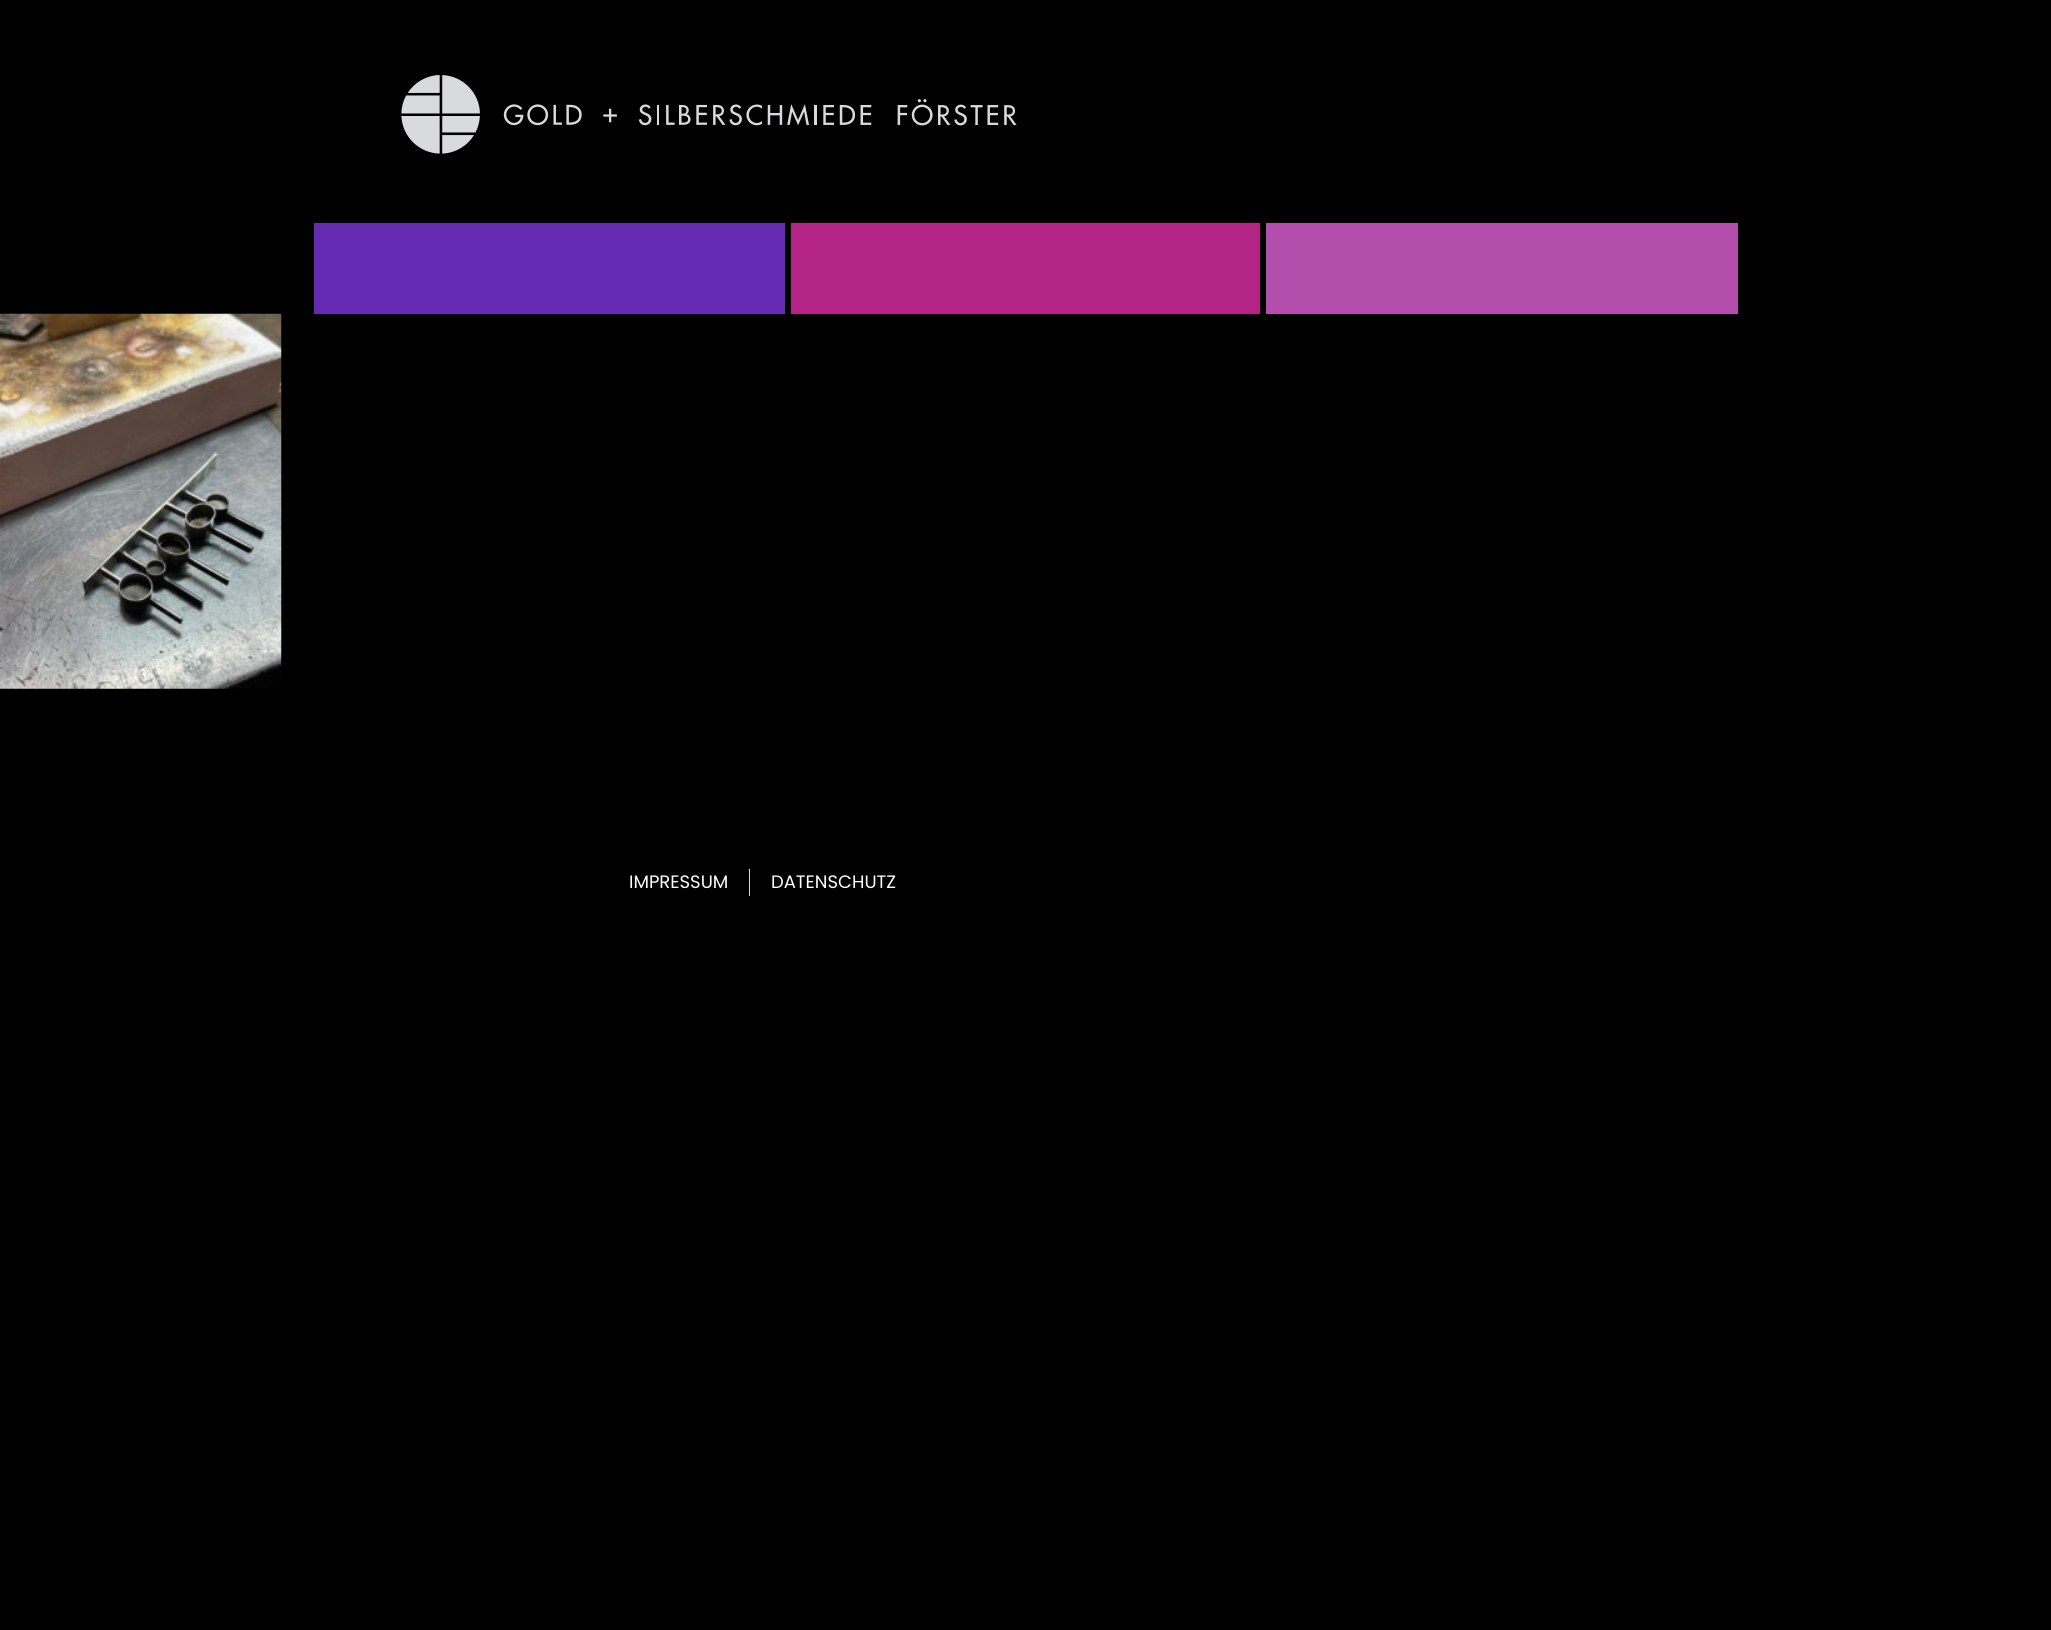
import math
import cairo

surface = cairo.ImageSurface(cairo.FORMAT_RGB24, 2051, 1630)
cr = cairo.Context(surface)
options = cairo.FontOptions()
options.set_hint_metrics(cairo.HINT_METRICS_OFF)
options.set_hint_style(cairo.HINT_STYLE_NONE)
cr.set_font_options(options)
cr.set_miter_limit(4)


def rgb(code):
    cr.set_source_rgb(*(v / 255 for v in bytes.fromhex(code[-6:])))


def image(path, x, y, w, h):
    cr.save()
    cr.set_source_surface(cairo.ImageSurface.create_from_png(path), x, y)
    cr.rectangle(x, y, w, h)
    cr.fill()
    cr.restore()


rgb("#000000")
cr.paint()
image("img/1.png", 401, 75, 616, 79)
for x, y, w, h, color in [
    (314, 223, 471, 91, "#652ab2"),
    (791, 223, 469, 91, "#b32486"),
    (1266, 223, 472, 91, "#b34ead"),
]:
    rgb(color)
    cr.rectangle(x, y, w, h)
    cr.fill()
image("img/2.png", 0, 313, 282, 376)
rgb("#dddddd")
cr.rectangle(749, 869, 1, 27)
cr.fill()
cr.select_font_face("Poppins")
cr.set_font_size(18)
rgb("#ffffff")
cr.move_to(629, 888)
cr.show_text("IMPRESSUM")
cr.move_to(771, 888)
cr.show_text("DATENSCHUTZ")
surface.write_to_png("page.png")
